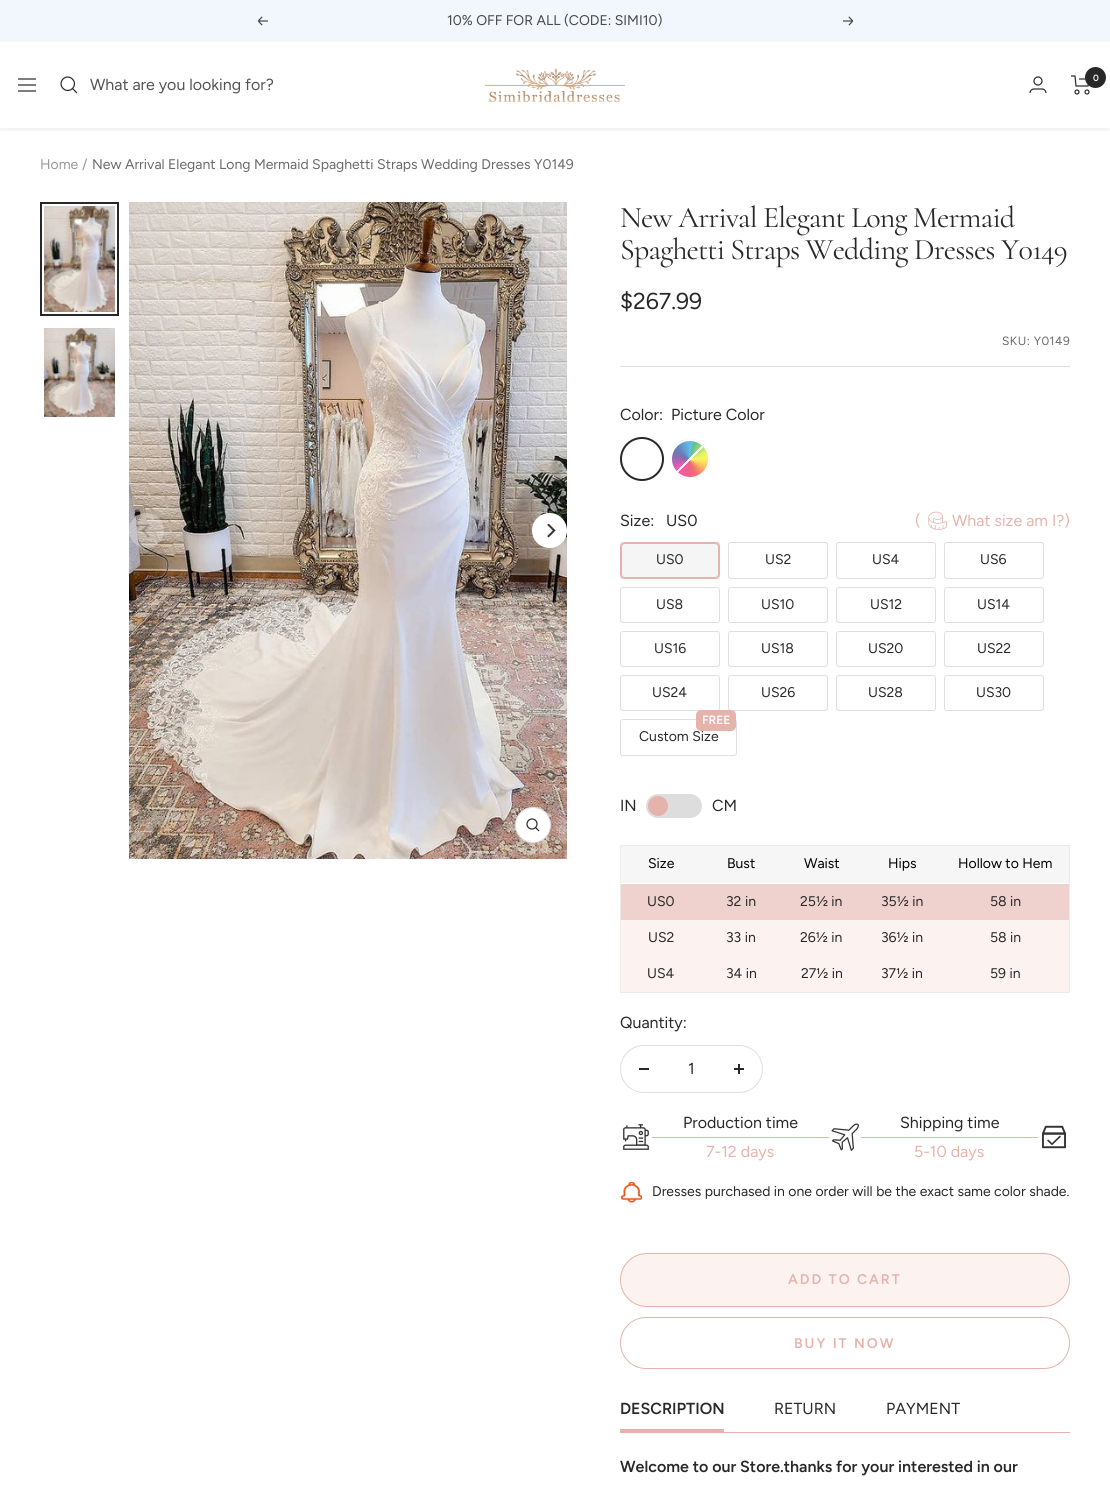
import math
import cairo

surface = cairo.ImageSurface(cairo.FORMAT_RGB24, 1110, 1490)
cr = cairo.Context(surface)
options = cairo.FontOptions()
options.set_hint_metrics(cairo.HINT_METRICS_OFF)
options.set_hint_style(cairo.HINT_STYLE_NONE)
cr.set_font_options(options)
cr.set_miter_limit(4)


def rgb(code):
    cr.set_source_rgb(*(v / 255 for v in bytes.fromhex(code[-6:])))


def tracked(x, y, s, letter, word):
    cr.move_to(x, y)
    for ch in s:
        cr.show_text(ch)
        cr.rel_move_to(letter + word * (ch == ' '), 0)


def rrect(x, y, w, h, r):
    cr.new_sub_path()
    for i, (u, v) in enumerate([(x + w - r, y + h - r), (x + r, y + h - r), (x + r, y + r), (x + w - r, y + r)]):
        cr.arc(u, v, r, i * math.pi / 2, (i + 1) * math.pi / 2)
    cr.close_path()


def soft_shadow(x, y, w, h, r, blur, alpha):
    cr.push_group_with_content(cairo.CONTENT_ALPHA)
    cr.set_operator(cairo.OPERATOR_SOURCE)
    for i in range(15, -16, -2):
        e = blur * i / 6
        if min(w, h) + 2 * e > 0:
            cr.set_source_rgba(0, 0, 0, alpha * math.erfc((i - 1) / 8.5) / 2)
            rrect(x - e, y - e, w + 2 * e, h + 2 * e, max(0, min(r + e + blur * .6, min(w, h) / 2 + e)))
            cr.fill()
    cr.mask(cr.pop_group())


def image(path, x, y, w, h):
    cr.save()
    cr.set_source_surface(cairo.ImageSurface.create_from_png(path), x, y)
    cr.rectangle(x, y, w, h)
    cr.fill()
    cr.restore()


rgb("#ffffff")
cr.paint()
rgb("#f1f7fd")
cr.rectangle(0, 0, 1110, 42)
cr.fill()
image("img/1.png", 257, 16, 11, 10)
image("img/2.png", 843, 16, 11, 10)
cr.save()
cr.rectangle(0, 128, 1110, 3)
cr.clip()
rgb("#000000")
soft_shadow(0, 45, 1110, 86, 0, 1.5, 0.05)
cr.restore()
cr.new_path()
cr.move_to(72.5, 88.5)
cr.curve_to(78.5, 82, 69.5, 73, 63, 79)
cr.curve_to(57, 85.5, 66, 94.5, 72.5, 88.5)
cr.close_path()
cr.move_to(72.5, 88.5)
cr.line_to(77, 93)
cr.move_to(18, 79)
cr.line_to(36, 79)
cr.move_to(18, 91)
cr.line_to(36, 91)
cr.close_path()
cr.move_to(18, 85)
cr.line_to(36, 85)
cr.close_path()
rgb("#282828")
cr.set_line_width(1.2)
cr.stroke()
image("img/3.png", 485, 68, 140, 34)
image("img/4.png", 1029, 76, 18, 17)
image("img/5.png", 1071, 75, 19, 20)
cr.arc(1095.5, 77.5, 10.5, 0, 2 * math.pi)
cr.fill()
image("img/6.png", 44, 206, 71, 106)
cr.rectangle(41, 203, 77, 112)
cr.set_line_width(2)
cr.stroke()
image("img/7.png", 44, 328, 71, 89)
image("img/8.png", 129, 202, 438, 657)
cr.set_source_rgba(1, 1, 1, 0.3)
cr.arc(146.5, 530.5, 17.5, 0, 2 * math.pi)
cr.fill()
image("img/9.png", 141, 524, 9, 14)
rgb("#ffffff")
cr.arc(549.5, 530.5, 17.5, 0, 2 * math.pi)
cr.fill()
image("img/10.png", 547, 524, 9, 14)
cr.arc(533, 825, 17.5, 0, 2 * math.pi)
cr.fill_preserve()
rgb("#dfdfdf")
cr.set_line_width(1)
cr.stroke()
image("img/11.png", 526, 818, 14, 14)
cr.rectangle(620, 366, 450, 1)
cr.fill()
cr.arc(642, 459, 19.5, 0, 2 * math.pi)
rgb("#e9e9e9")
cr.stroke()
cr.arc(642, 459, 19, 0, 2 * math.pi)
rgb("#ffffff")
cr.set_line_width(2)
cr.stroke()
cr.arc(642, 459, 21, 0, 2 * math.pi)
rgb("#282828")
cr.stroke()
image("img/12.png", 671, 440, 38, 38)
cr.arc(690, 459, 19.5, 0, 2 * math.pi)
rgb("#e9e9e9")
cr.set_line_width(1)
cr.stroke()
cr.save()
rrect(670, 439, 40, 40, 20)
cr.clip()
gradient = cairo.LinearGradient(672, 441, 708, 477)
gradient.add_color_stop_rgba(0.48, 1, 1, 1, 0)
gradient.add_color_stop_rgba(0.48, 1, 1, 1, 1)
gradient.add_color_stop_rgba(0.52, 1, 1, 1, 1)
gradient.add_color_stop_rgba(0.52, 1, 1, 1, 0)
cr.set_source(gradient)
cr.rectangle(675, 444, 30, 30)
cr.fill()
cr.restore()
cr.arc(690, 459, 19, 0, 2 * math.pi)
rgb("#ffffff")
cr.set_line_width(2)
cr.stroke()
image("img/13.png", 928, 511, 19, 19)
rgb("#f5f5f5")
rrect(620.5, 542.5, 99, 36, 2.5)
cr.fill_preserve()
rgb("#dfdfdf")
cr.set_line_width(1)
cr.stroke()
rrect(620.5, 542.5, 99, 36, 4.5)
rgb("#e5b3ac")
cr.stroke()
rrect(621.5, 543.5, 97, 34, 3.5)
cr.stroke()
rrect(728.5, 542.5, 99, 36, 2.5)
rgb("#dfdfdf")
cr.stroke()
rrect(836.5, 542.5, 99, 36, 2.5)
cr.stroke()
rrect(944.5, 542.5, 99, 36, 2.5)
cr.stroke()
rrect(620.5, 587.5, 99, 35, 2.5)
cr.stroke()
rrect(728.5, 587.5, 99, 35, 2.5)
cr.stroke()
rrect(836.5, 587.5, 99, 35, 2.5)
cr.stroke()
rrect(944.5, 587.5, 99, 35, 2.5)
cr.stroke()
rrect(620.5, 631.5, 99, 35, 2.5)
cr.stroke()
rrect(728.5, 631.5, 99, 35, 2.5)
cr.stroke()
rrect(836.5, 631.5, 99, 35, 2.5)
cr.stroke()
rrect(944.5, 631.5, 99, 35, 2.5)
cr.stroke()
rrect(620.5, 675.5, 99, 35, 2.5)
cr.stroke()
rrect(728.5, 675.5, 99, 35, 2.5)
cr.stroke()
rrect(836.5, 675.5, 99, 35, 2.5)
cr.stroke()
rrect(944.5, 675.5, 99, 35, 2.5)
cr.stroke()
rrect(620.5, 719.5, 116, 36, 2.5)
cr.stroke()
rgb("#e5b3ac")
rrect(696, 710, 40, 21, 5)
cr.fill()
rgb("#dddddd")
rrect(646, 794, 56, 24, 12)
cr.fill()
rgb("#e5b3ac")
cr.arc(658, 806, 10, 0, 2 * math.pi)
cr.fill()
for x, y, w, h, color in [
    (620, 845, 450, 1, "#ebebeb"),
    (1069, 845, 1, 148, "#ebebeb"),
    (620, 992, 450, 1, "#ebebeb"),
    (620, 845, 1, 148, "#ebebeb"),
    (621, 846, 448, 37, "#f6f6f6"),
    (620, 883, 450, 1, "#ffffff"),
    (621, 884, 448, 36, "#efd1cd"),
    (621, 920, 448, 72, "#fcf3f0"),
]:
    rgb(color)
    cr.rectangle(x, y, w, h)
    cr.fill()
rrect(620.5, 1045.5, 142, 47, 23.5)
rgb("#dfdfdf")
cr.stroke()
rgb("#282828")
cr.rectangle(639, 1068, 10, 2)
cr.fill()
image("img/14.png", 734, 1064, 10, 10)
image("img/15.png", 623, 1124, 26, 26)
rgb("#e5b3ac")
cr.rectangle(652, 1137, 177, 1)
cr.fill()
image("img/16.png", 831, 1123, 28, 28)
cr.rectangle(861, 1137, 177, 1)
cr.fill()
image("img/17.png", 1042, 1125, 24, 24)
image("img/18.png", 620, 1182, 22, 21)
cr.save()
rrect(620, 1253, 450, 54, 27)
cr.clip()
rgb("#fcf3f0")
cr.rectangle(621, 1254, 448, 52)
cr.fill()
cr.restore()
rrect(620.5, 1253.5, 449, 53, 26.5)
cr.stroke()
rrect(620.5, 1317.5, 449, 51, 25.5)
cr.stroke()
cr.rectangle(724, 1432, 346, 1)
cr.fill()
cr.rectangle(620, 1429, 104, 4)
cr.fill()
cr.select_font_face("Figtree")
cr.set_font_size(14)
rgb("#484848")
cr.move_to(447, 25)
cr.show_text("10% OFF FOR ALL (CODE: SIMI10)")
cr.set_font_size(16)
rgb("#535353")
cr.move_to(90, 90)
cr.show_text("What are you looking for?")
cr.select_font_face("Figtree SemiBold")
cr.set_font_size(9)
rgb("#ffffff")
cr.move_to(1093, 81)
cr.show_text("0")
cr.select_font_face("Figtree")
cr.set_font_size(14)
rgb("#969696")
cr.move_to(40, 169)
cr.show_text("Home")
cr.move_to(82, 169)
cr.show_text("/")
rgb("#696969")
cr.move_to(92, 169)
cr.show_text("New Arrival Elegant Long Mermaid Spaghetti Straps Wedding Dresses Y0149")
cr.select_font_face("Cormorant")
cr.set_font_size(30)
rgb("#282828")
tracked(620, 227, "New Arrival Elegant Long Mermaid", -0.8, 0)
tracked(620, 259, "Spaghetti Straps Wedding Dresses Y0149", -0.8, 0)
cr.select_font_face("Figtree")
cr.set_font_size(23)
cr.move_to(620, 309)
cr.show_text("$267.99")
cr.set_font_size(12)
rgb("#696969")
tracked(1002, 345, "SKU: Y0149", 0.5, 0)
cr.set_font_size(16)
rgb("#282828")
for x, y, s in [
    (620, 420, "Color:"),
    (671, 420, "Picture Color"),
    (620, 526, "Size:"),
    (666, 526, "US0"),
]:
    cr.move_to(x, y)
    cr.show_text(s)
rgb("#e5b3ac")
cr.move_to(915, 526)
cr.show_text("(")
cr.move_to(952, 526)
cr.show_text("What size am I?)")
cr.set_font_size(14)
rgb("#282828")
for x, y, s in [
    (656, 564, "US0"),
    (765, 564, "US2"),
    (872, 564, "US4"),
    (980, 564, "US6"),
    (656, 609, "US8"),
    (761, 609, "US10"),
    (870, 609, "US12"),
    (977, 609, "US14"),
    (654, 653, "US16"),
    (761, 653, "US18"),
    (868, 653, "US20"),
    (977, 653, "US22"),
    (652, 697, "US24"),
    (761, 697, "US26"),
    (868, 697, "US28"),
    (976, 697, "US30"),
]:
    cr.move_to(x, y)
    cr.show_text(s)
cr.select_font_face("Figtree SemiBold")
cr.set_font_size(12)
rgb("#ffffff")
cr.move_to(702, 724)
cr.show_text("FREE")
cr.select_font_face("Figtree")
cr.set_font_size(14)
rgb("#282828")
cr.move_to(639, 741)
cr.show_text("Custom Size")
cr.set_font_size(16)
cr.move_to(620, 811)
cr.show_text("IN")
cr.move_to(712, 811)
cr.show_text("CM")
cr.set_font_size(14)
rgb("#000000")
for x, y, s in [
    (648, 868, "Size"),
    (727, 868, "Bust"),
    (804, 868, "Waist"),
    (888, 868, "Hips"),
    (958, 868, "Hollow to Hem"),
]:
    cr.move_to(x, y)
    cr.show_text(s)
rgb("#282828")
for x, y, s in [
    (647, 906, "US0"),
    (726, 906, "32 in"),
    (800, 906, "25½ in"),
    (881, 906, "35½ in"),
    (990, 906, "58 in"),
    (648, 942, "US2"),
    (726, 942, "33 in"),
    (800, 942, "26½ in"),
    (881, 942, "36½ in"),
    (990, 942, "58 in"),
    (647, 978, "US4"),
    (726, 978, "34 in"),
    (801, 978, "27½ in"),
    (881, 978, "37½ in"),
    (990, 978, "59 in"),
]:
    cr.move_to(x, y)
    cr.show_text(s)
cr.set_font_size(16)
for x, y, s in [
    (620, 1028, "Quantity:"),
    (688, 1074, "1"),
    (683, 1128, "Production time"),
]:
    cr.move_to(x, y)
    cr.show_text(s)
rgb("#e5b3ac")
cr.move_to(706, 1157)
cr.show_text("7-12 days")
rgb("#282828")
cr.move_to(900, 1128)
cr.show_text("Shipping time")
rgb("#e5b3ac")
cr.move_to(914, 1157)
cr.show_text("5-10 days")
cr.set_font_size(14)
rgb("#282828")
cr.move_to(652, 1196)
cr.show_text("Dresses purchased in one order will be the exact same color shade.")
cr.select_font_face("Figtree SemiBold")
rgb("#e5b3ac")
tracked(788, 1284, "ADD TO CART", 2, 0)
tracked(794, 1348, "BUY IT NOW", 2, 0)
cr.set_font_size(16)
rgb("#282828")
cr.move_to(620, 1414)
cr.show_text("DESCRIPTION")
cr.select_font_face("Figtree")
cr.move_to(774, 1414)
cr.show_text("RETURN")
cr.move_to(886, 1414)
cr.show_text("PAYMENT")
cr.select_font_face("Figtree SemiBold")
cr.move_to(620, 1472)
cr.show_text("Welcome to our Store.thanks for your interested in our")
surface.write_to_png("page.png")
